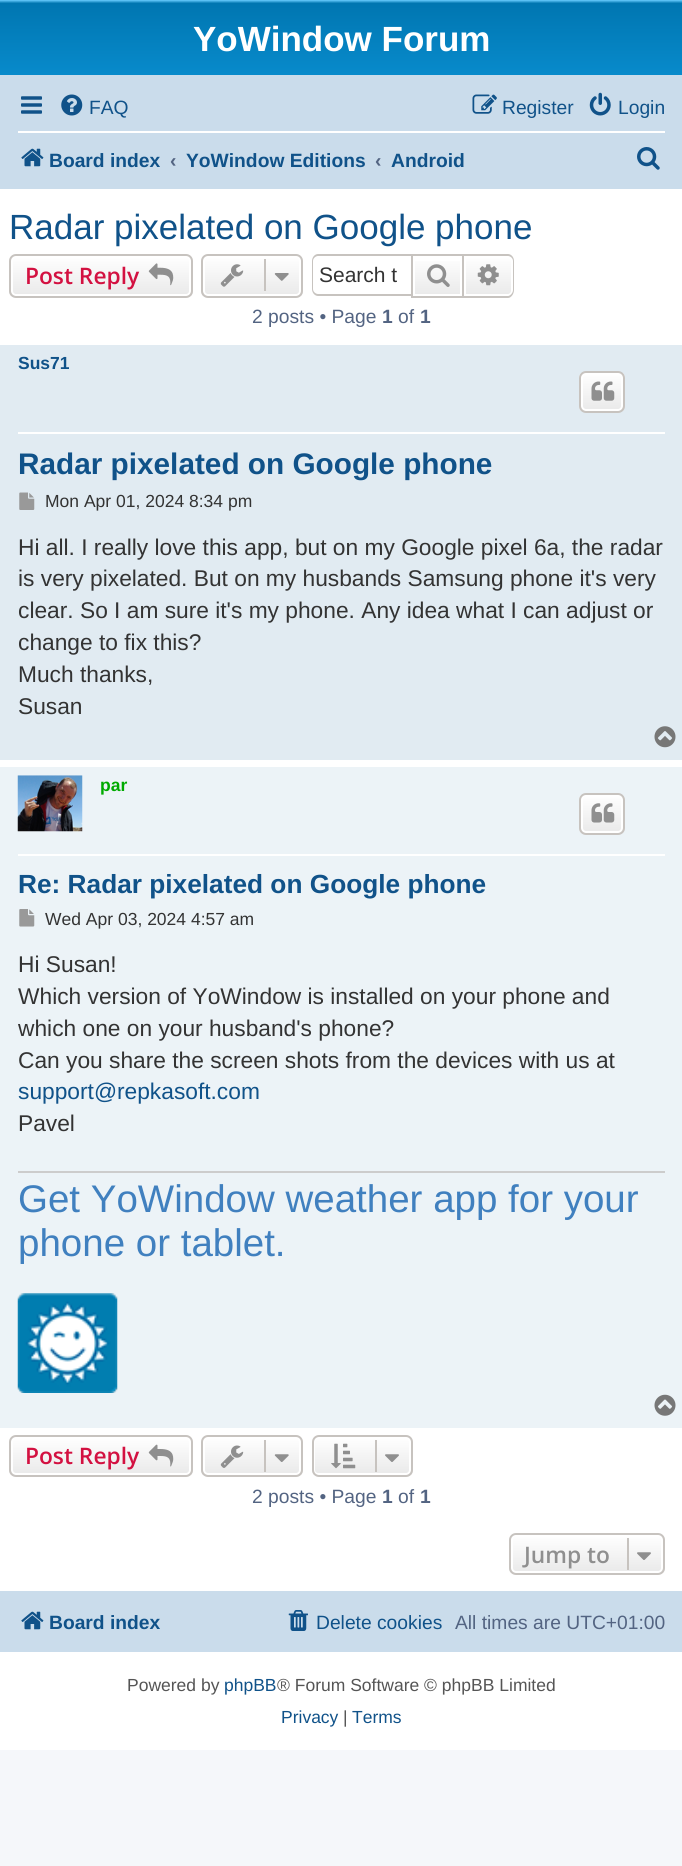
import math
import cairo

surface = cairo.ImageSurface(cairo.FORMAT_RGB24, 682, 1866)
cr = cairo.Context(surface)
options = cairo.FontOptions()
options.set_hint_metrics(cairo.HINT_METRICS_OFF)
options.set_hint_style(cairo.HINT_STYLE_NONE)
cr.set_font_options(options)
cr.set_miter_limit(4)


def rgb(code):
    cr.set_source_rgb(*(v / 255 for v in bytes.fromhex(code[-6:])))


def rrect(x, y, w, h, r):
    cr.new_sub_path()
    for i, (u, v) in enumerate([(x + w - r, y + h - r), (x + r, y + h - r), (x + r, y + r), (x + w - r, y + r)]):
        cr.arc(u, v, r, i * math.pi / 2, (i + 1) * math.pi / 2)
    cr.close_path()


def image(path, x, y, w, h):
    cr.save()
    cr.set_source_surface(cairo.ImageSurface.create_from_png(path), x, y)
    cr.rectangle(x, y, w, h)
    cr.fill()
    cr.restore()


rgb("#f5f7fa")
cr.paint()
rgb("#ffffff")
cr.rectangle(0, 189, 682, 1561)
cr.fill()
gradient = cairo.LinearGradient(341, 0, 341, 161)
gradient.add_color_stop_rgba(0, 0.416, 0.808, 1, 1)
gradient.add_color_stop_rgba(0.02, 0, 0.463, 0.694, 1)
gradient.add_color_stop_rgba(1, 0.071, 0.639, 0.922, 1)
cr.set_source(gradient)
cr.rectangle(0, 0, 682, 75)
cr.fill()
rgb("#cadceb")
cr.rectangle(0, 75, 682, 114)
cr.fill()
image("img/1.png", 21, 96, 21, 18)
image("img/2.png", 61, 94, 22, 22)
image("img/3.png", 472, 94, 25, 20)
image("img/4.png", 589, 92, 22, 24)
rgb("#ffffff")
cr.rectangle(18, 131, 647, 2)
cr.fill()
image("img/5.png", 21, 148, 23, 19)
image("img/6.png", 637, 147, 23, 23)
cr.save()
rrect(9, 254, 184, 44, 7)
cr.clip()
gradient = cairo.LinearGradient(101, 256, 101, 296)
gradient.add_color_stop_rgba(0, 1, 1, 1, 1)
gradient.add_color_stop_rgba(1, 0.914, 0.914, 0.914, 1)
cr.set_source(gradient)
cr.rectangle(9, 256, 184, 40)
cr.fill()
cr.restore()
rrect(12, 257, 178, 38, 4)
cr.stroke()
rrect(10, 255, 182, 42, 6)
rgb("#c7c3bf")
cr.stroke()
image("img/7.png", 148, 263, 26, 23)
cr.save()
rrect(201, 254, 102, 44, 7)
cr.clip()
gradient = cairo.LinearGradient(252, 256, 252, 296)
gradient.add_color_stop_rgba(0, 1, 1, 1, 1)
gradient.add_color_stop_rgba(1, 0.914, 0.914, 0.914, 1)
cr.set_source(gradient)
cr.rectangle(201, 256, 102, 40)
cr.fill()
cr.restore()
rrect(204, 257, 96, 38, 4)
rgb("#ffffff")
cr.stroke()
rrect(202, 255, 100, 42, 6)
rgb("#c7c3bf")
cr.stroke()
image("img/8.png", 220, 264, 24, 23)
cr.rectangle(264, 259, 2, 32)
cr.fill()
image("img/9.png", 274, 273, 15, 8)
cr.set_fill_rule(cairo.FILL_RULE_EVEN_ODD)
cr.new_path()
cr.move_to(318, 254)
cr.line_to(411, 254)
cr.line_to(411, 296)
cr.line_to(318, 296)
cr.curve_to(315, 296, 312, 293, 312, 289)
cr.line_to(312, 261)
cr.curve_to(312, 257, 315, 254, 318, 254)
cr.close_path()
cr.move_to(318, 256)
cr.line_to(411, 256)
cr.line_to(411, 294)
cr.line_to(318, 294)
cr.curve_to(316, 294, 313, 292, 313, 289)
cr.line_to(313, 261)
cr.curve_to(313, 258, 316, 256, 318, 256)
cr.close_path()
cr.fill()
gradient = cairo.LinearGradient(438, 256, 438, 296)
gradient.add_color_stop_rgba(0, 1, 1, 1, 1)
gradient.add_color_stop_rgba(1, 0.914, 0.914, 0.914, 1)
cr.set_source(gradient)
cr.rectangle(415, 261, 45, 33)
cr.fill()
cr.rectangle(412, 255, 51, 42)
rgb("#c7c3bf")
cr.stroke()
image("img/10.png", 427, 264, 23, 23)
gradient = cairo.LinearGradient(488, 256, 488, 296)
gradient.add_color_stop_rgba(0, 1, 1, 1, 1)
gradient.add_color_stop_rgba(1, 0.914, 0.914, 0.914, 1)
cr.set_source(gradient)
cr.new_path()
cr.move_to(465, 257)
cr.line_to(508, 257)
cr.curve_to(510, 257, 512, 259, 512, 261)
cr.line_to(512, 291)
cr.curve_to(512, 293, 510, 295, 508, 295)
cr.line_to(465, 295)
cr.close_path()
cr.fill_preserve()
rgb("#ffffff")
cr.stroke()
rgb("#c7c3bf")
cr.new_path()
cr.move_to(464, 254)
cr.line_to(508, 254)
cr.curve_to(511, 254, 514, 257, 514, 261)
cr.line_to(514, 290)
cr.curve_to(514, 294, 511, 298, 508, 298)
cr.line_to(464, 298)
cr.close_path()
cr.move_to(464, 256)
cr.line_to(508, 256)
cr.curve_to(510, 256, 513, 258, 513, 261)
cr.line_to(513, 290)
cr.curve_to(513, 293, 510, 296, 508, 296)
cr.line_to(464, 296)
cr.close_path()
cr.fill()
image("img/11.png", 477, 264, 22, 22)
rgb("#e1ebf2")
cr.rectangle(0, 345, 682, 415)
cr.fill()
rgb("#ffffff")
cr.rectangle(18, 432, 647, 2)
cr.fill()
cr.save()
cr.set_fill_rule(cairo.FILL_RULE_WINDING)
rrect(579, 371, 46, 42, 7)
cr.clip()
gradient = cairo.LinearGradient(602, 373, 602, 411)
gradient.add_color_stop_rgba(0, 1, 1, 1, 1)
gradient.add_color_stop_rgba(1, 0.914, 0.914, 0.914, 1)
cr.set_source(gradient)
cr.rectangle(579, 373, 46, 38)
cr.fill()
cr.restore()
rrect(582, 374, 40, 36, 4)
cr.stroke()
rrect(580, 372, 44, 40, 6)
rgb("#c7c3bf")
cr.stroke()
image("img/12.png", 591, 381, 24, 20)
image("img/13.png", 19, 492, 16, 18)
image("img/14.png", 654, 726, 22, 22)
rgb("#ecf3f7")
cr.rectangle(0, 767, 682, 661)
cr.fill()
rgb("#ffffff")
cr.rectangle(18, 854, 647, 2)
cr.fill()
image("img/15.png", 17, 775, 66, 57)
cr.save()
cr.set_fill_rule(cairo.FILL_RULE_WINDING)
rrect(579, 793, 46, 42, 7)
cr.clip()
gradient = cairo.LinearGradient(602, 795, 602, 833)
gradient.add_color_stop_rgba(0, 1, 1, 1, 1)
gradient.add_color_stop_rgba(1, 0.914, 0.914, 0.914, 1)
cr.set_source(gradient)
cr.rectangle(579, 795, 46, 38)
cr.fill()
cr.restore()
rrect(582, 796, 40, 36, 4)
cr.stroke()
rrect(580, 794, 44, 40, 6)
rgb("#c7c3bf")
cr.stroke()
image("img/16.png", 591, 803, 24, 20)
image("img/17.png", 19, 909, 16, 18)
rgb("#cccccc")
cr.rectangle(18, 1171, 647, 2)
cr.fill()
image("img/18.png", 17, 1293, 101, 100)
image("img/19.png", 654, 1394, 22, 22)
cr.save()
cr.set_fill_rule(cairo.FILL_RULE_WINDING)
rrect(9, 1435, 184, 42, 7)
cr.clip()
gradient = cairo.LinearGradient(101, 1437, 101, 1475)
gradient.add_color_stop_rgba(0, 1, 1, 1, 1)
gradient.add_color_stop_rgba(1, 0.914, 0.914, 0.914, 1)
cr.set_source(gradient)
cr.rectangle(9, 1437, 184, 38)
cr.fill()
cr.restore()
rrect(12, 1438, 178, 36, 4)
rgb("#ffffff")
cr.stroke()
rrect(10, 1436, 182, 40, 6)
rgb("#c7c3bf")
cr.stroke()
image("img/20.png", 148, 1444, 26, 23)
cr.save()
cr.set_fill_rule(cairo.FILL_RULE_WINDING)
rrect(201, 1435, 102, 42, 7)
cr.clip()
gradient = cairo.LinearGradient(252, 1437, 252, 1475)
gradient.add_color_stop_rgba(0, 1, 1, 1, 1)
gradient.add_color_stop_rgba(1, 0.914, 0.914, 0.914, 1)
cr.set_source(gradient)
cr.rectangle(201, 1437, 102, 38)
cr.fill()
cr.restore()
rrect(204, 1438, 96, 36, 4)
rgb("#ffffff")
cr.stroke()
rrect(202, 1436, 100, 40, 6)
rgb("#c7c3bf")
cr.stroke()
image("img/21.png", 220, 1445, 24, 23)
cr.rectangle(264, 1440, 2, 32)
cr.fill()
image("img/22.png", 274, 1454, 15, 8)
cr.save()
cr.set_fill_rule(cairo.FILL_RULE_WINDING)
rrect(312, 1435, 101, 42, 7)
cr.clip()
gradient = cairo.LinearGradient(362, 1437, 362, 1475)
gradient.add_color_stop_rgba(0, 1, 1, 1, 1)
gradient.add_color_stop_rgba(1, 0.914, 0.914, 0.914, 1)
cr.set_source(gradient)
cr.rectangle(312, 1437, 101, 38)
cr.fill()
cr.restore()
rrect(314, 1438, 96, 36, 4)
rgb("#ffffff")
cr.stroke()
rrect(313, 1436, 99, 40, 6)
rgb("#c7c3bf")
cr.stroke()
image("img/23.png", 331, 1443, 25, 26)
cr.rectangle(375, 1440, 2, 32)
cr.fill()
image("img/24.png", 385, 1454, 14, 8)
cr.save()
cr.set_fill_rule(cairo.FILL_RULE_WINDING)
rrect(509, 1533, 156, 42, 7)
cr.clip()
gradient = cairo.LinearGradient(587, 1535, 587, 1573)
gradient.add_color_stop_rgba(0, 1, 1, 1, 1)
gradient.add_color_stop_rgba(1, 0.914, 0.914, 0.914, 1)
cr.set_source(gradient)
cr.rectangle(509, 1535, 156, 38)
cr.fill()
cr.restore()
rrect(512, 1536, 150, 36, 4)
rgb("#ffffff")
cr.stroke()
rrect(510, 1534, 154, 40, 6)
rgb("#c7c3bf")
cr.stroke()
cr.rectangle(627, 1538, 2, 32)
cr.fill()
image("img/24.png", 637, 1552, 14, 8)
rgb("#cadceb")
cr.rectangle(0, 1591, 682, 61)
cr.fill()
image("img/5.png", 21, 1611, 23, 19)
image("img/25.png", 288, 1610, 20, 21)
cr.select_font_face("Liberation Sans", cairo.FONT_SLANT_NORMAL, cairo.FONT_WEIGHT_BOLD)
cr.set_font_size(35)
rgb("#ffffff")
cr.move_to(193, 51)
cr.show_text("YoWindow Forum")
cr.select_font_face("Liberation Sans")
cr.set_font_size(19.25)
rgb("#105289")
for x, y, s in [
    (89, 114, "FAQ"),
    (502, 114, "Register"),
    (618, 114, "Login"),
]:
    cr.move_to(x, y)
    cr.show_text(s)
cr.select_font_face("Liberation Sans", cairo.FONT_SLANT_NORMAL, cairo.FONT_WEIGHT_BOLD)
cr.move_to(49, 167)
cr.show_text("Board index")
rgb("#536482")
cr.move_to(170, 167)
cr.show_text("‹")
rgb("#105289")
cr.move_to(186, 167)
cr.show_text("YoWindow Editions")
rgb("#536482")
cr.move_to(375, 167)
cr.show_text("‹")
rgb("#105289")
cr.move_to(391, 167)
cr.show_text("Android")
cr.select_font_face("Liberation Sans")
cr.set_font_size(35)
cr.move_to(9, 239)
cr.show_text("Radar pixelated on Google phone")
cr.select_font_face("Open Sans SemiBold")
cr.set_font_size(22.75)
rgb("#d31141")
cr.move_to(25, 284)
cr.show_text("Post Reply")
cr.select_font_face("Liberation Sans")
cr.set_font_size(21)
rgb("#333333")
cr.move_to(319, 282)
cr.show_text("Search t")
cr.set_font_size(19.25)
rgb("#536482")
cr.move_to(252, 323)
cr.show_text("2 posts • Page")
cr.select_font_face("Liberation Sans", cairo.FONT_SLANT_NORMAL, cairo.FONT_WEIGHT_BOLD)
cr.move_to(382, 323)
cr.show_text("1")
cr.select_font_face("Liberation Sans")
cr.move_to(398, 323)
cr.show_text("of")
cr.select_font_face("Liberation Sans", cairo.FONT_SLANT_NORMAL, cairo.FONT_WEIGHT_BOLD)
cr.move_to(420, 323)
cr.show_text("1")
cr.set_font_size(17.5)
rgb("#105289")
cr.move_to(18, 369)
cr.show_text("Sus71")
cr.set_font_size(29.75)
cr.move_to(18, 474)
cr.show_text("Radar pixelated on Google phone")
cr.select_font_face("Liberation Sans")
cr.set_font_size(17.5)
rgb("#333333")
cr.move_to(45, 507)
cr.show_text("Mon Apr 01, 2024 8:34 pm")
cr.set_font_size(22.75)
for x, y, s in [
    (18, 555, "Hi all. I really love this app, but on my Google pixel 6a, the radar"),
    (18, 586, "is very pixelated. But on my husbands Samsung phone it's very"),
    (18, 618, "clear. So I am sure it's my phone. Any idea what I can adjust or"),
    (18, 650, "change to fix this?"),
    (18, 682, "Much thanks,"),
    (18, 714, "Susan"),
]:
    cr.move_to(x, y)
    cr.show_text(s)
cr.select_font_face("Liberation Sans", cairo.FONT_SLANT_NORMAL, cairo.FONT_WEIGHT_BOLD)
cr.set_font_size(17.5)
rgb("#00aa00")
cr.move_to(100, 791)
cr.show_text("par")
cr.set_font_size(26.25)
rgb("#105289")
cr.move_to(18, 893)
cr.show_text("Re: Radar pixelated on Google phone")
cr.select_font_face("Liberation Sans")
cr.set_font_size(17.5)
rgb("#333333")
cr.move_to(45, 925)
cr.show_text("Wed Apr 03, 2024 4:57 am")
cr.set_font_size(22.75)
for x, y, s in [
    (18, 972, "Hi Susan!"),
    (18, 1004, "Which version of YoWindow is installed on your phone and"),
    (18, 1036, "which one on your husband's phone?"),
    (18, 1068, "Can you share the screen shots from the devices with us at"),
]:
    cr.move_to(x, y)
    cr.show_text(s)
rgb("#105289")
cr.move_to(18, 1099)
cr.show_text("support@repkasoft.com")
rgb("#333333")
cr.move_to(18, 1131)
cr.show_text("Pavel")
cr.set_font_size(38.5)
rgb("#4080bf")
cr.move_to(18, 1212)
cr.show_text("Get YoWindow weather app for your")
cr.move_to(18, 1256)
cr.show_text("phone or tablet.")
cr.select_font_face("Open Sans SemiBold")
cr.set_font_size(22.75)
rgb("#d31141")
cr.move_to(25, 1464)
cr.show_text("Post Reply")
cr.select_font_face("Liberation Sans")
cr.set_font_size(19.25)
rgb("#536482")
cr.move_to(252, 1503)
cr.show_text("2 posts • Page")
cr.select_font_face("Liberation Sans", cairo.FONT_SLANT_NORMAL, cairo.FONT_WEIGHT_BOLD)
cr.move_to(382, 1503)
cr.show_text("1")
cr.select_font_face("Liberation Sans")
cr.move_to(398, 1503)
cr.show_text("of")
cr.select_font_face("Liberation Sans", cairo.FONT_SLANT_NORMAL, cairo.FONT_WEIGHT_BOLD)
cr.move_to(420, 1503)
cr.show_text("1")
cr.select_font_face("Open Sans SemiBold")
cr.set_font_size(22.75)
rgb("#8f8f8f")
cr.move_to(524, 1563)
cr.show_text("Jump to")
cr.select_font_face("Liberation Sans", cairo.FONT_SLANT_NORMAL, cairo.FONT_WEIGHT_BOLD)
cr.set_font_size(19.25)
rgb("#105289")
cr.move_to(49, 1629)
cr.show_text("Board index")
cr.select_font_face("Liberation Sans")
cr.move_to(316, 1629)
cr.show_text("Delete cookies")
rgb("#536482")
cr.move_to(455, 1629)
cr.show_text("All times are UTC+01:00")
cr.set_font_size(17.5)
rgb("#555555")
cr.move_to(127, 1691)
cr.show_text("Powered by")
rgb("#105289")
cr.move_to(224, 1691)
cr.show_text("phpBB")
rgb("#555555")
cr.move_to(277, 1691)
cr.show_text("® Forum Software © phpBB Limited")
rgb("#105289")
cr.move_to(281, 1723)
cr.show_text("Privacy")
rgb("#555555")
cr.move_to(343, 1723)
cr.show_text("|")
rgb("#105289")
cr.move_to(352, 1723)
cr.show_text("Terms")
surface.write_to_png("page.png")
